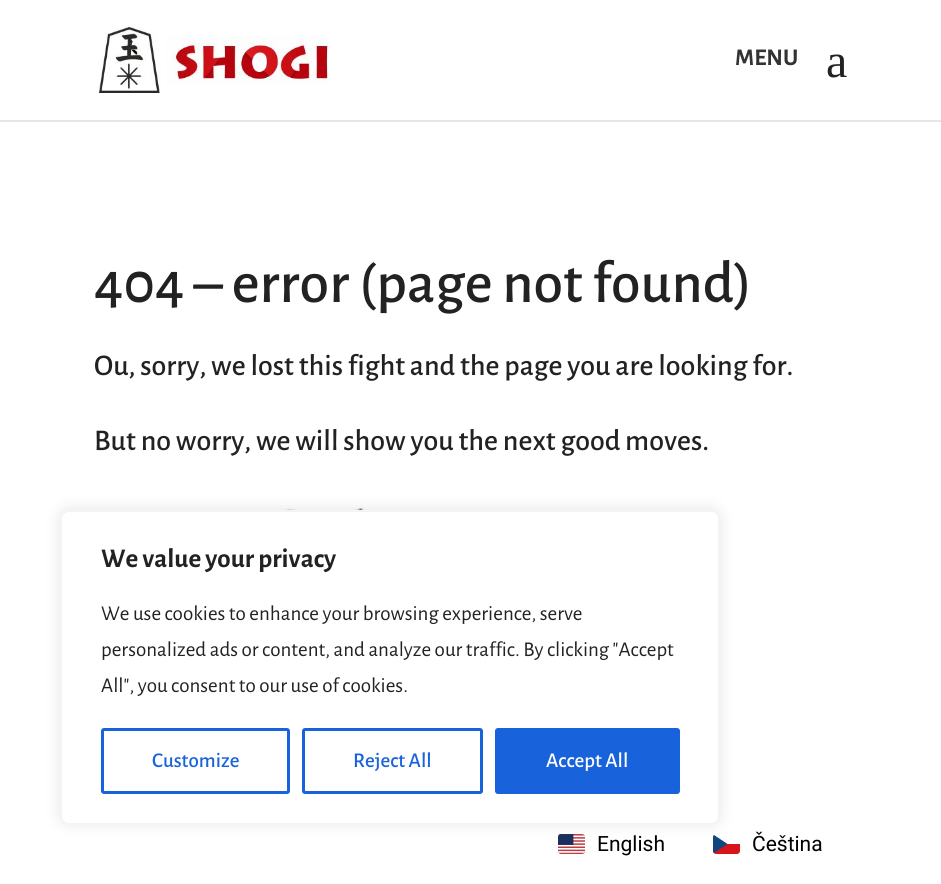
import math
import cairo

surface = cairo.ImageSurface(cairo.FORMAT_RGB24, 941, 884)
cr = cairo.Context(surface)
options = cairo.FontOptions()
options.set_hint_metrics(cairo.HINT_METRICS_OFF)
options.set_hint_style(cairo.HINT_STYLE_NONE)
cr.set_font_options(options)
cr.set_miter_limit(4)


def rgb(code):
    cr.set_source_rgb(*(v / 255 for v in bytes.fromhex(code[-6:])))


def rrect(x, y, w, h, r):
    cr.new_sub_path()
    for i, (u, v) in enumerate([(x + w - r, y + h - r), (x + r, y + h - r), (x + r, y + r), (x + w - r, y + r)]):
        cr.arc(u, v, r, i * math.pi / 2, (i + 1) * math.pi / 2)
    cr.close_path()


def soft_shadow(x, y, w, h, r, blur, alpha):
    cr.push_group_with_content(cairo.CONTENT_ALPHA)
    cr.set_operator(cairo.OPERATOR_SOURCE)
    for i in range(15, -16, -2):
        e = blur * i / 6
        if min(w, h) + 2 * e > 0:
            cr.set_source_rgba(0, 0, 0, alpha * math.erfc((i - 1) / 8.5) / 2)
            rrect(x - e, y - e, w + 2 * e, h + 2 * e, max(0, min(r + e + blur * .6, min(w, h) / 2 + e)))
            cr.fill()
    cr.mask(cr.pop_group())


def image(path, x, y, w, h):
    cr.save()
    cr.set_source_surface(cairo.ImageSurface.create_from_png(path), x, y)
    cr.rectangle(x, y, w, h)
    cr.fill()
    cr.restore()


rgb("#ffffff")
cr.paint()
rgb("#e6e6e6")
cr.rectangle(0, 120, 941, 2)
cr.fill()
image("img/1.png", 99, 27, 229, 66)
image("img/2.png", 286, 508, 78, 2)
image("img/3.png", 558, 834, 27, 20)
rgb("#d7141a")
cr.new_path()
cr.move_to(713, 844)
cr.line_to(740, 844)
cr.line_to(740, 851)
cr.curve_to(740, 852.5, 738.5, 854, 737, 854)
cr.line_to(716, 854)
cr.curve_to(714.5, 854, 713, 852.5, 713, 851)
cr.close_path()
cr.fill()
cr.save()
cr.rectangle(713, 834, 27, 20)
cr.clip()
rgb("#11457e")
cr.new_path()
cr.move_to(727.5, 844)
cr.line_to(714, 835)
cr.curve_to(712, 836.5, 713, 842, 713, 844)
cr.curve_to(713, 846, 712, 851.5, 714, 853)
cr.close_path()
cr.fill()
cr.restore()
rgb("#acabab")
soft_shadow(60, 509, 660, 315, 9, 7.5, 0.3)
rgb("#ffffff")
rrect(61, 511, 658, 313, 8)
cr.fill_preserve()
rgb("#f4f4f4")
cr.stroke()
rrect(102.5, 729.5, 186, 63, 1.5)
rgb("#1863dc")
cr.set_line_width(3)
cr.stroke()
rrect(303.5, 729.5, 178, 63, 1.5)
cr.stroke()
rrect(496.5, 729.5, 182, 63, 1.5)
cr.fill_preserve()
cr.stroke()
cr.select_font_face("Alegreya Sans SC", cairo.FONT_SLANT_NORMAL, cairo.FONT_WEIGHT_BOLD)
cr.set_font_size(24)
rgb("#333333")
cr.move_to(735, 65)
cr.show_text("MENU")
cr.select_font_face("Liberation Serif")
cr.set_font_size(48)
rgb("#222222")
cr.move_to(826, 77)
cr.show_text("a")
cr.select_font_face("Alegreya Sans Medium")
cr.set_font_size(60)
cr.move_to(94, 302)
cr.show_text("404 – error (page not found)")
cr.set_font_size(30)
cr.move_to(94, 375)
cr.show_text("Ou, sorry, we lost this fight and the page you are looking for.")
cr.move_to(94, 450)
cr.show_text("But no worry, we will show you the next good moves.")
cr.select_font_face("Alegreya Sans", cairo.FONT_SLANT_NORMAL, cairo.FONT_WEIGHT_BOLD)
cr.set_font_size(27)
cr.move_to(101, 567)
cr.show_text("We value your privacy")
cr.select_font_face("Alegreya Sans")
cr.set_font_size(21)
for x, y, s in [
    (101, 620, "We use cookies to enhance your browsing experience, serve"),
    (101, 656, "personalized ads or content, and analyze our traffic. By clicking \"Accept"),
    (101, 692, "All\", you consent to our use of cookies."),
]:
    cr.move_to(x, y)
    cr.show_text(s)
cr.select_font_face("Alegreya Sans Medium")
rgb("#1863dc")
cr.move_to(152, 767)
cr.show_text("Customize")
cr.move_to(353, 767)
cr.show_text("Reject All")
rgb("#ffffff")
cr.move_to(546, 767)
cr.show_text("Accept All")
cr.select_font_face("Roboto")
rgb("#000000")
cr.move_to(597, 851)
cr.show_text("English")
cr.move_to(752, 851)
cr.show_text("Čeština")
surface.write_to_png("page.png")
